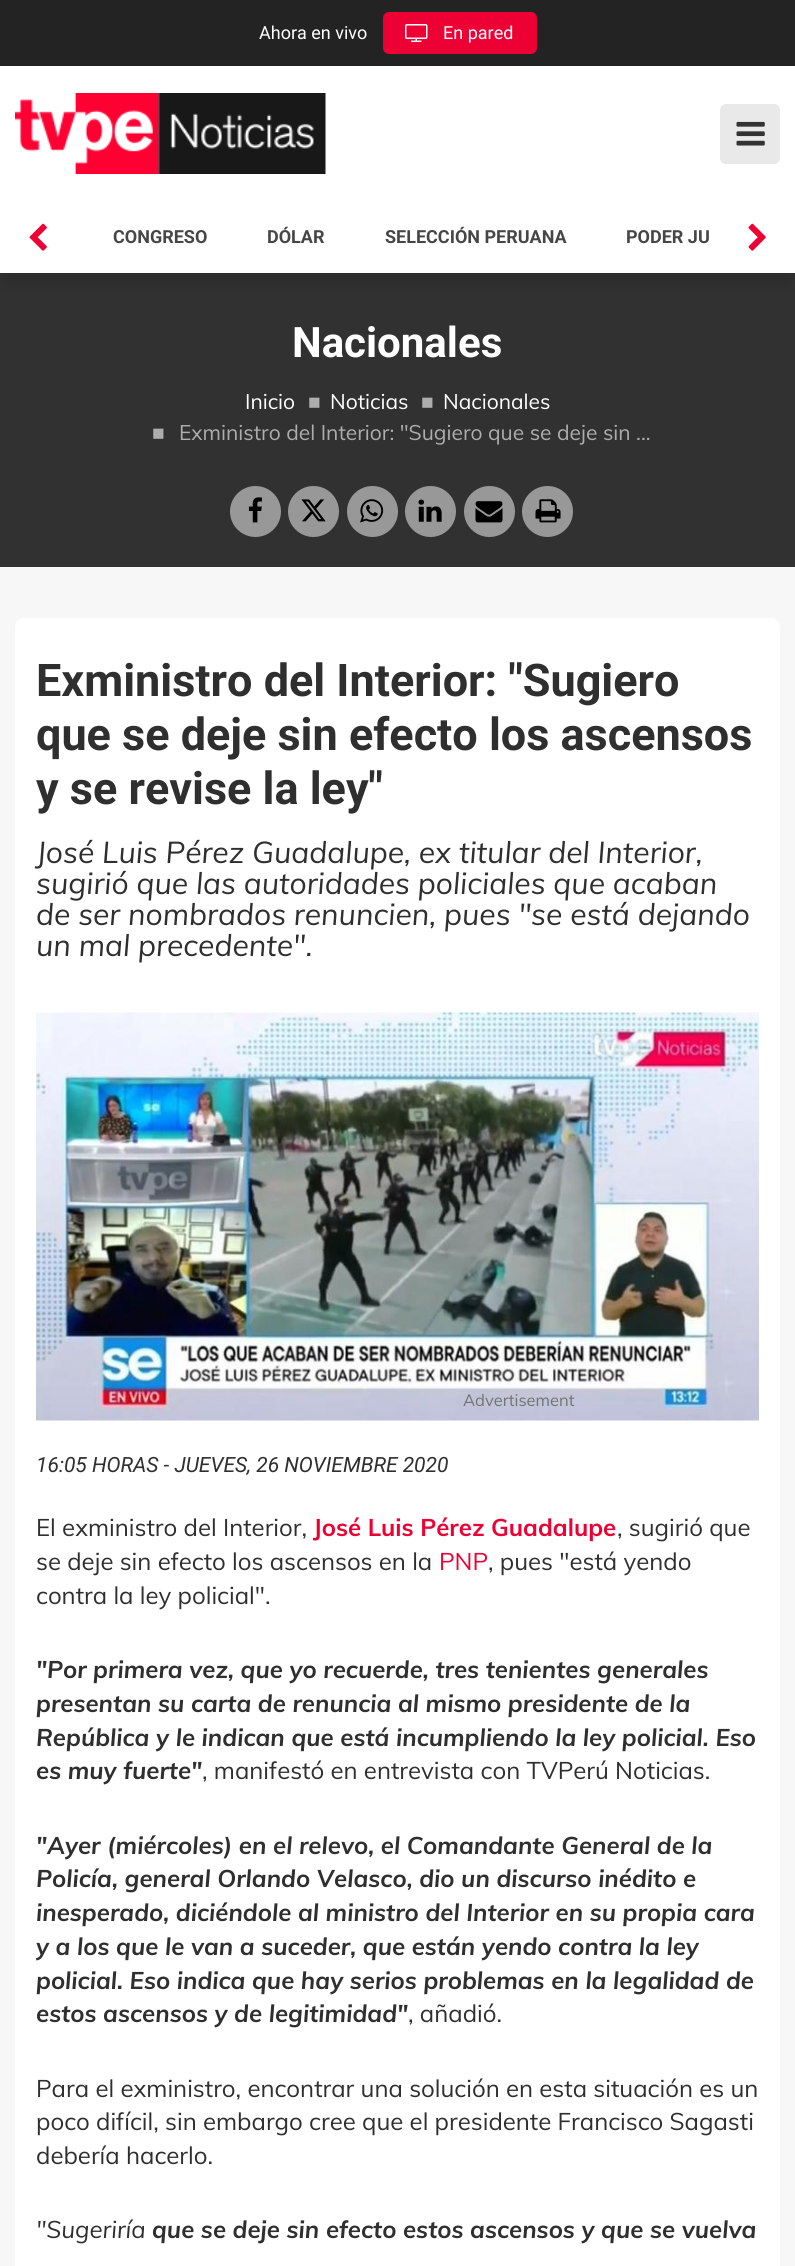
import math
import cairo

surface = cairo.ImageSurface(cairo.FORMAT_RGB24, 795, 2266)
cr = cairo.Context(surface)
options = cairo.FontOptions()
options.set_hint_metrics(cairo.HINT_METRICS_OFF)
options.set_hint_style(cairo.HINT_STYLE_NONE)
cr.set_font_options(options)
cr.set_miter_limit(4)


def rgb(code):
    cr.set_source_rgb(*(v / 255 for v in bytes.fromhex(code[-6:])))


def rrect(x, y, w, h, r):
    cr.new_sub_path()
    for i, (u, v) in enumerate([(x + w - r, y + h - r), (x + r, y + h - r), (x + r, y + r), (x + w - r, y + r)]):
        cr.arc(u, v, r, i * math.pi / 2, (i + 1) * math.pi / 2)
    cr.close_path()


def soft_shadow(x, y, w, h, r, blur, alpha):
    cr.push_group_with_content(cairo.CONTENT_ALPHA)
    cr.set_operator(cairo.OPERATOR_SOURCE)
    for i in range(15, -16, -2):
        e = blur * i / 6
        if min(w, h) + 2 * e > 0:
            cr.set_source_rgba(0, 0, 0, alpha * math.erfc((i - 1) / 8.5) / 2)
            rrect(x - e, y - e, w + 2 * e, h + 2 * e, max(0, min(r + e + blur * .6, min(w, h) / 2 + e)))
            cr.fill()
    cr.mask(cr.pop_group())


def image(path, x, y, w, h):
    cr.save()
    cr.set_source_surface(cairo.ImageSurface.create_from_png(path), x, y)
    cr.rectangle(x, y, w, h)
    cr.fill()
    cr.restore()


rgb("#f7f7f7")
cr.paint()
rgb("#313131")
cr.rectangle(0, 273, 795, 294)
cr.fill()
rgb("#232323")
cr.rectangle(0, 0, 795, 66)
cr.fill()
rgb("#ed0134")
rrect(383, 12, 154, 42, 6)
cr.fill()
image("img/1.png", 405, 24, 23, 18)
rgb("#000000")
soft_shadow(5, 221, 786, 63, 0, 7.5, 0.1)
rgb("#ffffff")
cr.rectangle(0, 66, 795, 207)
cr.fill()
image("img/2.png", 15, 93, 311, 81)
rgb("#e9e9e9")
rrect(720, 104, 60, 60, 6)
cr.fill()
image("img/3.png", 736, 121, 29, 25)
image("img/4.png", 29, 223, 18, 28)
image("img/5.png", 748, 223, 18, 28)
rgb("#989898")
cr.arc(255.5, 511.5, 25.5, 0, 2 * math.pi)
cr.fill()
image("img/6.png", 248, 497, 14, 26)
cr.arc(313.5, 511.5, 25.5, 0, 2 * math.pi)
cr.fill()
image("img/7.png", 301, 499, 25, 23)
cr.arc(372.5, 511.5, 25.5, 0, 2 * math.pi)
cr.fill()
image("img/8.png", 360, 499, 24, 24)
cr.arc(430.5, 511.5, 25.5, 0, 2 * math.pi)
cr.fill()
image("img/9.png", 418, 499, 24, 23)
cr.arc(489.5, 511.5, 25.5, 0, 2 * math.pi)
cr.fill()
image("img/10.png", 475, 501, 28, 22)
cr.arc(547.5, 511.5, 25.5, 0, 2 * math.pi)
cr.fill()
image("img/11.png", 535, 499, 26, 24)
rgb("#ffffff")
rrect(15, 618, 765, 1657, 9)
cr.fill()
image("img/12.png", 36, 1012, 723, 409)
cr.select_font_face("Roboto")
cr.set_font_size(18)
cr.move_to(259, 39)
cr.show_text("Ahora en vivo")
cr.move_to(443, 39)
cr.show_text("En pared")
cr.select_font_face("Roboto", cairo.FONT_SLANT_NORMAL, cairo.FONT_WEIGHT_BOLD)
rgb("#464646")
for x, y, s in [
    (113, 243, "CONGRESO"),
    (267, 243, "DÓLAR"),
    (385, 243, "SELECCIÓN PERUANA"),
    (626, 243, "PODER JU"),
]:
    cr.move_to(x, y)
    cr.show_text(s)
cr.set_font_size(42)
rgb("#ffffff")
cr.move_to(292, 357)
cr.show_text("Nacionales")
cr.select_font_face("Muli")
cr.set_font_size(21)
cr.move_to(245, 409)
cr.show_text("Inicio")
cr.select_font_face("Liberation Sans")
rgb("#adadad")
cr.move_to(308, 409)
cr.show_text("■")
cr.select_font_face("Muli")
rgb("#ffffff")
cr.move_to(330, 409)
cr.show_text("Noticias")
cr.select_font_face("Liberation Sans")
rgb("#adadad")
cr.move_to(421, 409)
cr.show_text("■")
cr.select_font_face("Muli")
rgb("#ffffff")
cr.move_to(443, 409)
cr.show_text("Nacionales")
cr.select_font_face("Liberation Sans")
rgb("#adadad")
cr.move_to(152, 440)
cr.show_text("■")
cr.select_font_face("Muli")
cr.move_to(179, 440)
cr.show_text("Exministro del Interior: \"Sugiero que se deje sin ...")
cr.select_font_face("Roboto", cairo.FONT_SLANT_NORMAL, cairo.FONT_WEIGHT_BOLD)
cr.set_font_size(45)
rgb("#2f2f2f")
for x, y, s in [
    (36, 696, "Exministro del Interior: \"Sugiero"),
    (36, 750, "que se deje sin efecto los ascensos"),
    (36, 804, "y se revise la ley\""),
]:
    cr.move_to(x, y)
    cr.show_text(s)
cr.select_font_face("Muli", cairo.FONT_SLANT_ITALIC)
cr.set_font_size(30)
for x, y, s in [
    (36, 863, "José Luis Pérez Guadalupe, ex titular del Interior,"),
    (36, 894, "sugirió que las autoridades policiales que acaban"),
    (36, 925, "de ser nombrados renuncien, pues \"se está dejando"),
    (36, 956, "un mal precedente\"."),
]:
    cr.move_to(x, y)
    cr.show_text(s)
cr.select_font_face("Muli")
cr.set_font_size(16.5)
rgb("#70756f")
cr.move_to(463, 1406)
cr.show_text("Advertisement")
cr.select_font_face("Roboto", cairo.FONT_SLANT_ITALIC)
cr.set_font_size(21)
rgb("#2f2f2f")
cr.move_to(36, 1472)
cr.show_text("16:05 HORAS - JUEVES, 26 NOVIEMBRE 2020")
cr.select_font_face("Muli")
cr.set_font_size(24)
cr.move_to(36, 1536)
cr.show_text("El exministro del Interior,")
cr.select_font_face("Muli", cairo.FONT_SLANT_NORMAL, cairo.FONT_WEIGHT_BOLD)
rgb("#ed0134")
cr.move_to(313, 1536)
cr.show_text("José Luis Pérez Guadalupe")
cr.select_font_face("Muli")
rgb("#2f2f2f")
cr.move_to(617, 1536)
cr.show_text(", sugirió que")
cr.move_to(36, 1570)
cr.show_text("se deje sin efecto los ascensos en la")
rgb("#ed0134")
cr.move_to(439, 1570)
cr.show_text("PNP")
rgb("#2f2f2f")
cr.move_to(488, 1570)
cr.show_text(", pues \"está yendo")
cr.move_to(36, 1604)
cr.show_text("contra la ley policial\".")
cr.select_font_face("Muli", cairo.FONT_SLANT_ITALIC, cairo.FONT_WEIGHT_BOLD)
for x, y, s in [
    (36, 1678, "\"Por primera vez, que yo recuerde, tres tenientes generales"),
    (36, 1712, "presentan su carta de renuncia al mismo presidente de la"),
    (36, 1746, "República y le indican que está incumpliendo la ley policial. Eso"),
    (36, 1779, "es muy fuerte\""),
]:
    cr.move_to(x, y)
    cr.show_text(s)
cr.select_font_face("Muli")
cr.move_to(202, 1779)
cr.show_text(", manifestó en entrevista con TVPerú Noticias.")
cr.select_font_face("Muli", cairo.FONT_SLANT_ITALIC, cairo.FONT_WEIGHT_BOLD)
for x, y, s in [
    (36, 1854, "\"Ayer (miércoles) en el relevo, el Comandante General de la"),
    (36, 1887, "Policía, general Orlando Velasco, dio un discurso inédito e"),
    (36, 1921, "inesperado, diciéndole al ministro del Interior en su propia cara"),
    (36, 1955, "y a los que le van a suceder, que están yendo contra la ley"),
    (36, 1989, "policial. Eso indica que hay serios problemas en la legalidad de"),
    (36, 2022, "estos ascensos y de legitimidad\""),
]:
    cr.move_to(x, y)
    cr.show_text(s)
cr.select_font_face("Muli")
for x, y, s in [
    (408, 2022, ", añadió."),
    (36, 2097, "Para el exministro, encontrar una solución en esta situación es un"),
    (36, 2130, "poco difícil, sin embargo cree que el presidente Francisco Sagasti"),
    (36, 2164, "debería hacerlo."),
]:
    cr.move_to(x, y)
    cr.show_text(s)
cr.select_font_face("Muli", cairo.FONT_SLANT_ITALIC)
cr.move_to(36, 2238)
cr.show_text("\"Sugeriría")
cr.select_font_face("Muli", cairo.FONT_SLANT_ITALIC, cairo.FONT_WEIGHT_BOLD)
cr.move_to(152, 2238)
cr.show_text("que se deje sin efecto estos ascensos y que se vuelva")
surface.write_to_png("page.png")
